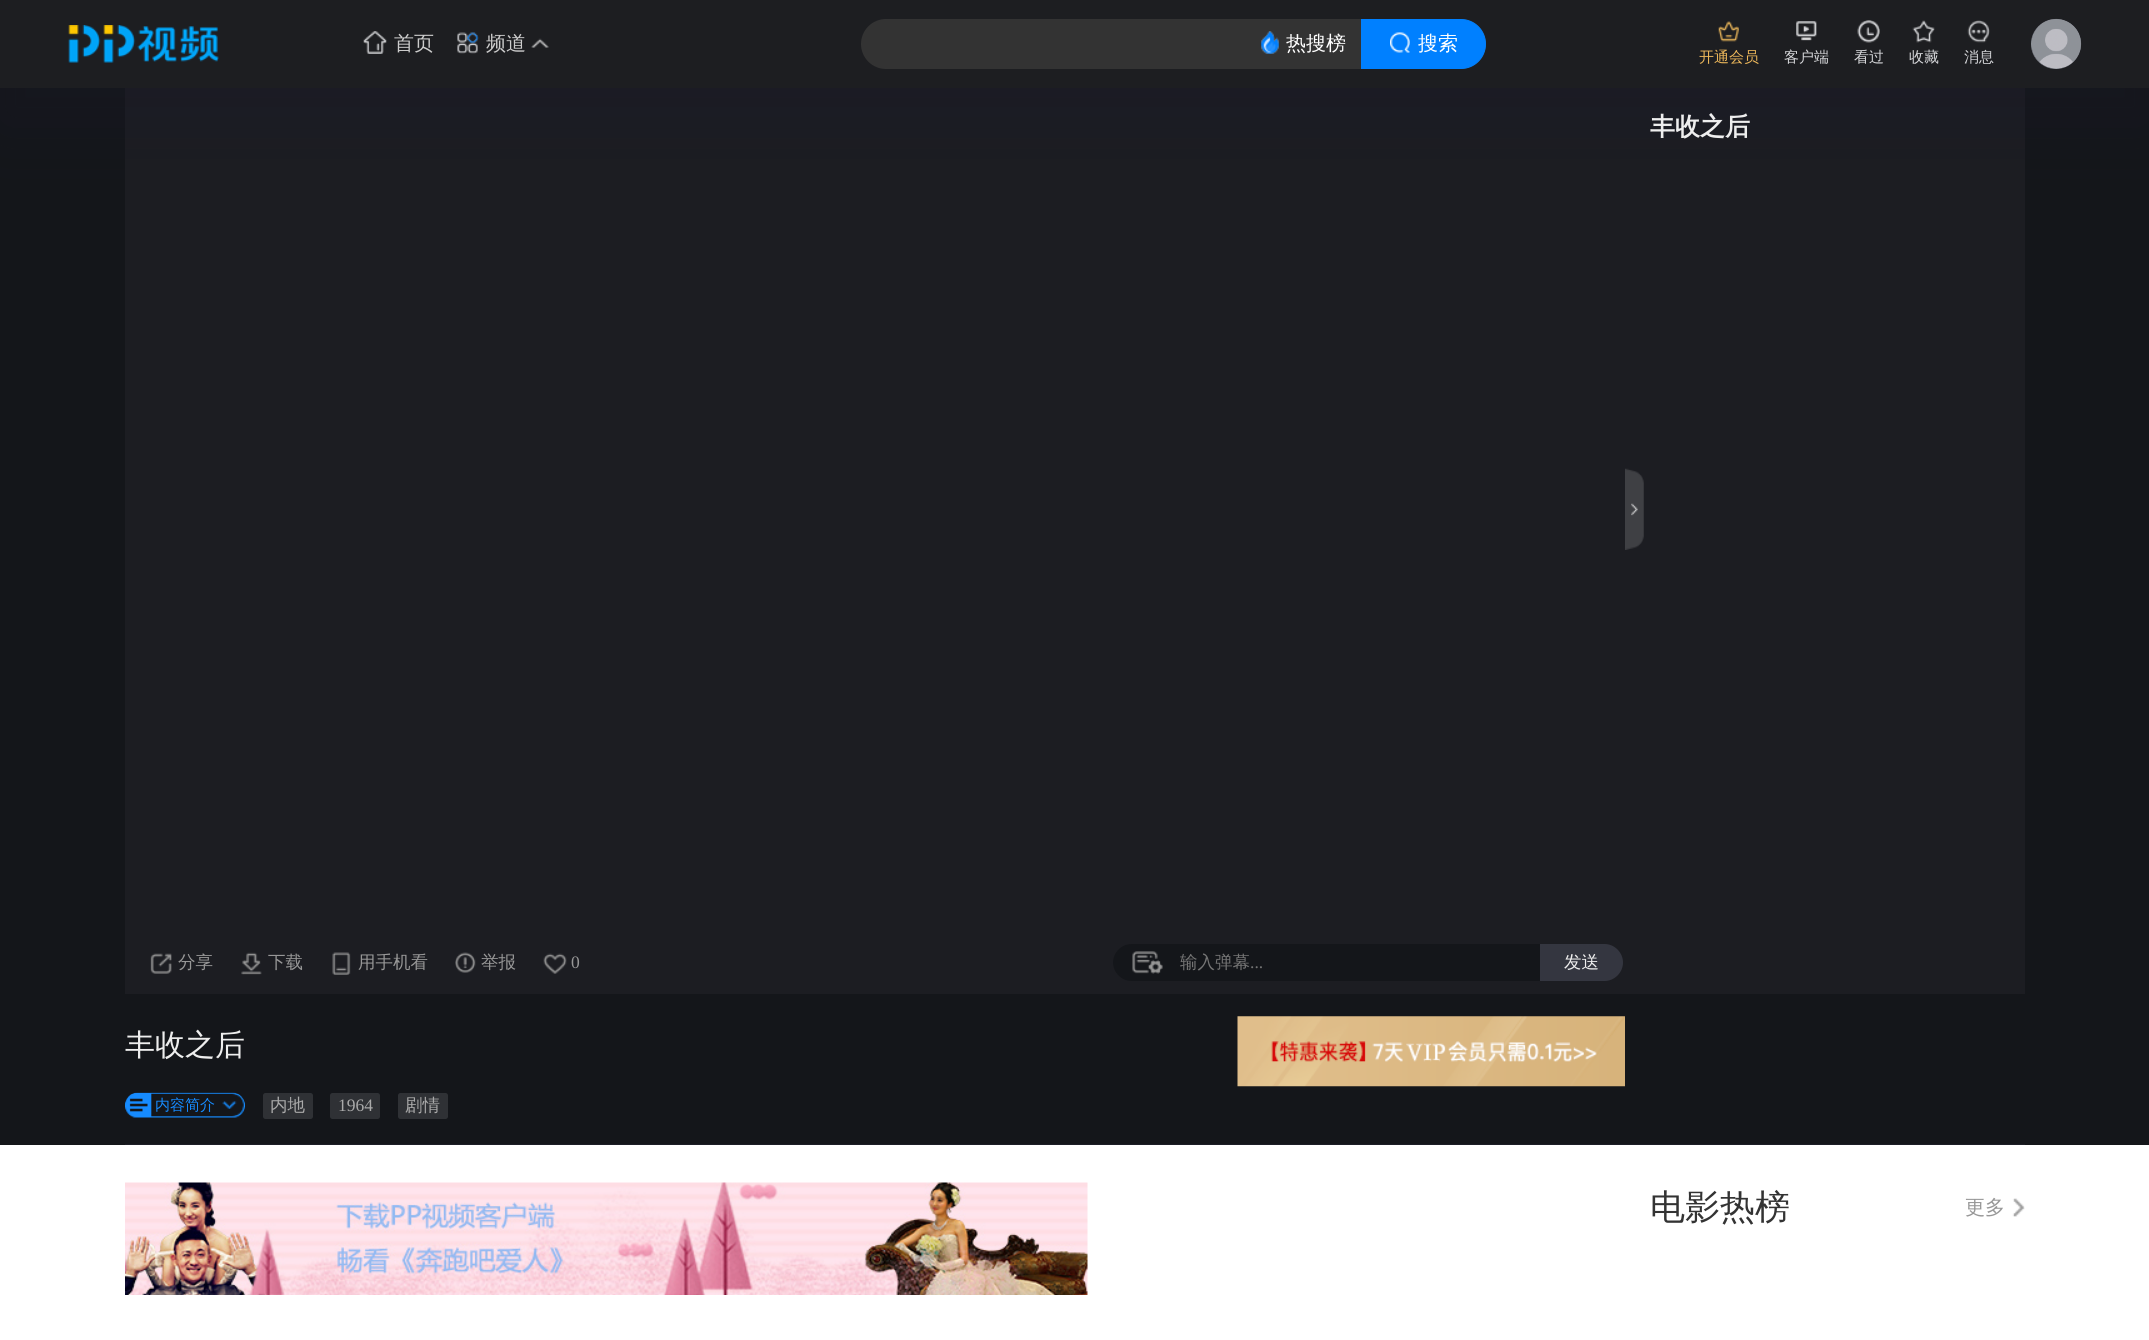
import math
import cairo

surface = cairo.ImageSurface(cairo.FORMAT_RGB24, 2149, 1340)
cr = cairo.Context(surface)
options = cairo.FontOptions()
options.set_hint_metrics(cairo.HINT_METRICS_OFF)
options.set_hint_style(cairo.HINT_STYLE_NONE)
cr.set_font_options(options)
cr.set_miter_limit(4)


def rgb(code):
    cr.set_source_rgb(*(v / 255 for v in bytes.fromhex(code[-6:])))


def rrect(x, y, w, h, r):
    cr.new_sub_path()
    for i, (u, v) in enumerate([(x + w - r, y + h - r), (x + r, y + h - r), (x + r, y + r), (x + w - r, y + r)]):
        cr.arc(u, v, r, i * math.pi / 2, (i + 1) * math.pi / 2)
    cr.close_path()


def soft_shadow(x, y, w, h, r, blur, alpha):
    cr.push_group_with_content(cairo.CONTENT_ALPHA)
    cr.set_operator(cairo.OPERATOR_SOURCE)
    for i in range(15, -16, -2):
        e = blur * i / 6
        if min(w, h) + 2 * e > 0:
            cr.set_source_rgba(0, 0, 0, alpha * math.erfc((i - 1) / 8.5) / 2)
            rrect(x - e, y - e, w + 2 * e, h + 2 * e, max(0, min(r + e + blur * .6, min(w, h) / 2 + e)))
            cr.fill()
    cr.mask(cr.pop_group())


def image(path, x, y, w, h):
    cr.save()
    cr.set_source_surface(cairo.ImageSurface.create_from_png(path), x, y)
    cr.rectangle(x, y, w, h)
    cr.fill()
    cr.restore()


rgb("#ffffff")
cr.paint()
rgb("#14161a")
cr.rectangle(0, 88, 2149, 1057)
cr.fill()
rgb("#1c1d22")
cr.rectangle(125, 88, 1900, 906)
cr.fill()
cr.save()
cr.set_fill_rule(cairo.FILL_RULE_EVEN_ODD)
cr.new_path()
cr.move_to(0, 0)
cr.line_to(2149, 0)
cr.line_to(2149, 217)
cr.line_to(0, 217)
cr.close_path()
cr.move_to(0, 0)
cr.line_to(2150, 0)
cr.line_to(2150, 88)
cr.line_to(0, 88)
cr.close_path()
cr.clip()
rgb("#191828")
soft_shadow(0, 35, 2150, 88, 0, 31, 0.35)
cr.restore()
cr.set_source_rgba(0.071, 0.075, 0.09, 0.95)
cr.rectangle(0, 0, 2149, 88)
cr.fill()
image("img/1.png", 68, 25, 151, 38)
image("img/2.png", 363, 31, 24, 23)
image("img/3.png", 457, 32, 22, 22)
image("img/4.png", 531, 38, 18, 10)
rgb("#333333")
rrect(861, 19, 625, 50, 25)
cr.fill()
image("img/5.png", 1261, 31, 18, 23)
rgb("#0080ff")
cr.new_path()
cr.move_to(1361.5, 19.5)
cr.line_to(1461, 19.5)
cr.curve_to(1474.5, 19.5, 1485.5, 30.5, 1485.5, 44)
cr.curve_to(1485.5, 57.5, 1474.5, 68.5, 1461, 68.5)
cr.line_to(1361.5, 68.5)
cr.close_path()
cr.fill_preserve()
cr.set_line_width(1)
cr.stroke()
image("img/6.png", 1390, 32, 20, 21)
image("img/7.png", 1718, 21, 21, 21)
image("img/8.png", 1796, 21, 21, 20)
image("img/9.png", 1857, 20, 23, 23)
image("img/10.png", 1912, 20, 23, 23)
image("img/11.png", 1967, 20, 23, 23)
rgb("#8e9299")
cr.arc(2056, 44, 25, 0, 2 * math.pi)
cr.fill()
image("img/12.png", 2031, 18, 51, 51)
image("img/13.png", 1625, 468, 19, 82)
image("img/14.png", 150, 953, 22, 21)
image("img/15.png", 241, 952, 21, 23)
image("img/16.png", 332, 952, 19, 23)
image("img/17.png", 455, 952, 21, 21)
image("img/18.png", 543, 953, 24, 21)
rgb("#14161a")
cr.new_path()
cr.move_to(1131.5, 944)
cr.line_to(1540, 944)
cr.line_to(1540, 981)
cr.line_to(1131.5, 981)
cr.curve_to(1121.5, 981, 1113, 972.5, 1113, 962.5)
cr.curve_to(1113, 952.5, 1121.5, 944, 1131.5, 944)
cr.close_path()
cr.fill()
image("img/19.png", 1132, 951, 31, 23)
rgb("#343640")
cr.new_path()
cr.move_to(1540, 944)
cr.line_to(1604.5, 944)
cr.curve_to(1614.5, 944, 1623, 952.5, 1623, 962.5)
cr.curve_to(1623, 972.5, 1614.5, 981, 1604.5, 981)
cr.line_to(1540, 981)
cr.close_path()
cr.fill()
image("img/20.png", 1237, 1016, 388, 71)
rgb("#1d1e27")
cr.rectangle(125, 1144, 1900, 1)
cr.fill()
image("img/21.png", 125, 1092, 120, 26)
rgb("#2f3135")
rrect(263, 1093, 50, 26, 2.5)
cr.fill()
rrect(330, 1093, 50, 26, 2.5)
cr.fill()
rrect(398, 1093, 50, 26, 2.5)
cr.fill()
image("img/22.png", 125, 1182, 963, 113)
image("img/23.png", 2012, 1198, 13, 19)
cr.select_font_face("WenQuanYi Zen Hei Medium")
cr.set_font_size(20)
rgb("#cccccc")
cr.move_to(394, 50)
cr.show_text("首页")
cr.move_to(486, 50)
cr.show_text("频道")
rgb("#ffffff")
cr.move_to(1286, 50)
cr.show_text("热搜榜")
cr.move_to(1418, 50)
cr.show_text("搜索")
cr.set_font_size(15)
rgb("#ecb75a")
cr.move_to(1699, 62)
cr.show_text("开通会员")
rgb("#d5d6d9")
for x, y, s in [
    (1784, 62, "客户端"),
    (1854, 62, "看过"),
    (1909, 62, "收藏"),
    (1964, 62, "消息"),
]:
    cr.move_to(x, y)
    cr.show_text(s)
cr.select_font_face("WenQuanYi Zen Hei", cairo.FONT_SLANT_NORMAL, cairo.FONT_WEIGHT_BOLD)
cr.set_font_size(25)
rgb("#eeeeee")
cr.move_to(1650, 135)
cr.show_text("丰收之后")
cr.select_font_face("WenQuanYi Zen Hei Medium")
cr.set_font_size(17.5)
rgb("#979797")
for x, y, s in [
    (178, 968, "分享"),
    (268, 968, "下载"),
    (358, 968, "用手机看"),
    (481, 968, "举报"),
]:
    cr.move_to(x, y)
    cr.show_text(s)
cr.select_font_face("Liberation Serif")
cr.move_to(571, 968)
cr.show_text("0")
cr.select_font_face("WenQuanYi Zen Hei Medium")
rgb("#757575")
cr.move_to(1180, 968)
cr.show_text("输入弹幕")
cr.select_font_face("Liberation Serif")
cr.move_to(1250, 968)
cr.show_text("...")
cr.select_font_face("WenQuanYi Zen Hei Medium")
rgb("#eeeeee")
cr.move_to(1564, 968)
cr.show_text("发送")
cr.set_font_size(30)
cr.move_to(125, 1055)
cr.show_text("丰收之后")
cr.set_font_size(15)
rgb("#168bff")
cr.move_to(155, 1110)
cr.show_text("内容简介")
cr.set_font_size(17.5)
rgb("#aaaaaa")
cr.move_to(270, 1111)
cr.show_text("内地")
cr.select_font_face("Liberation Serif")
cr.move_to(338, 1111)
cr.show_text("1964")
cr.select_font_face("WenQuanYi Zen Hei Medium")
cr.move_to(405, 1111)
cr.show_text("剧情")
cr.set_font_size(35)
rgb("#333333")
cr.move_to(1650, 1219)
cr.show_text("电影热榜")
cr.set_font_size(20)
rgb("#979797")
cr.move_to(1965, 1214)
cr.show_text("更多")
surface.write_to_png("page.png")
